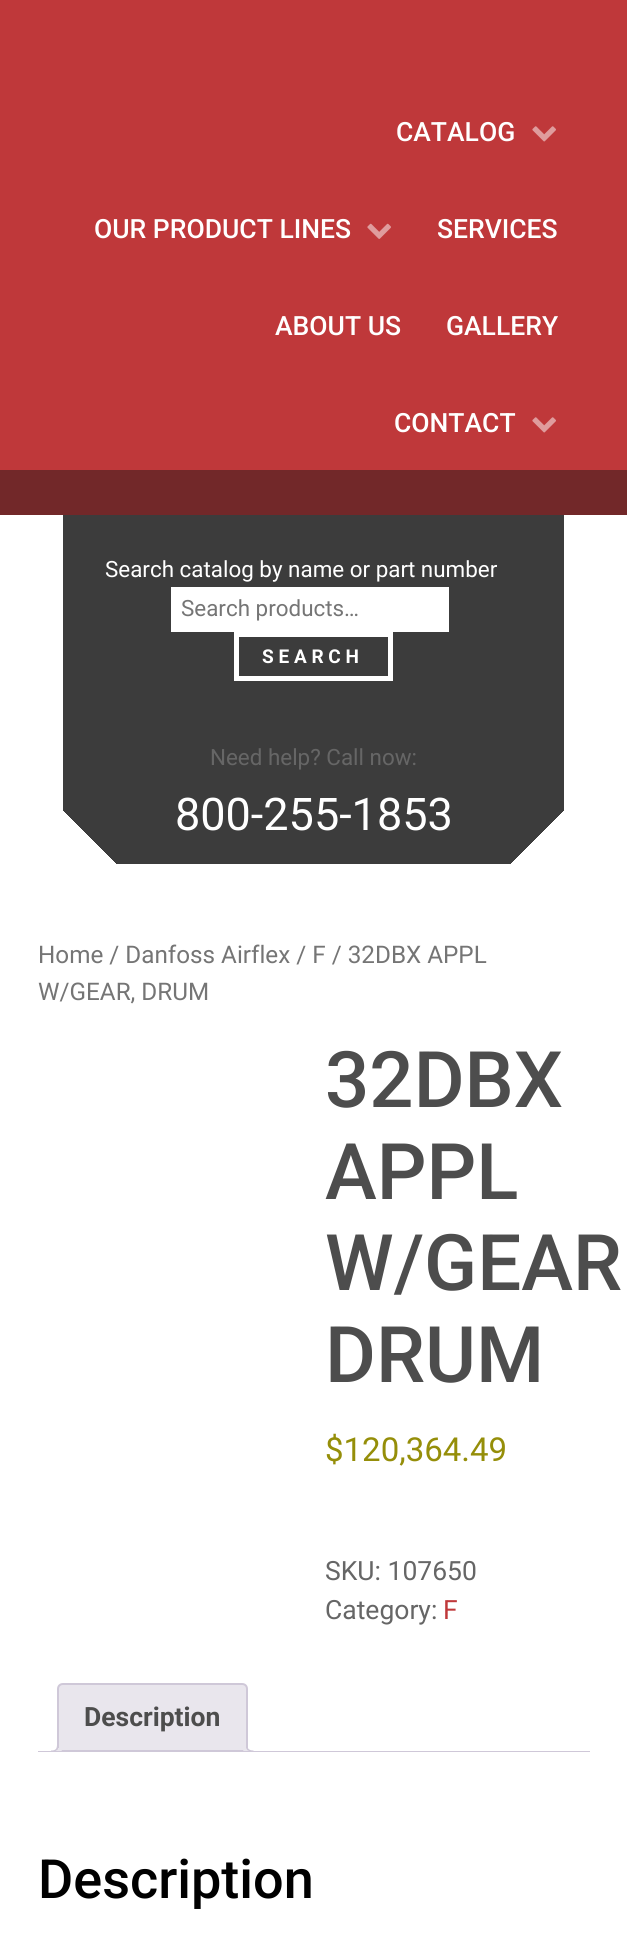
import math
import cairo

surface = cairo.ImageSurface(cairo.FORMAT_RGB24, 627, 1943)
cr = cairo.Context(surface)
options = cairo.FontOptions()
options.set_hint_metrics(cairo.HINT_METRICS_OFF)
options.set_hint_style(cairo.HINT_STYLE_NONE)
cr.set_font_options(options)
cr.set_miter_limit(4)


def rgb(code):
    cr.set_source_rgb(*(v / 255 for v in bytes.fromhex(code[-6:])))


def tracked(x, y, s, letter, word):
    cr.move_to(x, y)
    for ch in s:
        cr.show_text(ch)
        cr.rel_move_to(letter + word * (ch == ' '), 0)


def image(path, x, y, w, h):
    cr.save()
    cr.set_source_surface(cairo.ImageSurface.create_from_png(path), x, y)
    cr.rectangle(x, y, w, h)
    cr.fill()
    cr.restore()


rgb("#ffffff")
cr.paint()
rgb("#bf383a")
cr.rectangle(0, 0, 627, 470)
cr.fill()
rgb("#722829")
cr.rectangle(0, 470, 627, 45)
cr.fill()
image("img/1.png", 532, 126, 24, 16)
image("img/2.png", 367, 223, 24, 16)
image("img/1.png", 532, 417, 24, 16)
gradient = cairo.LinearGradient(83, 884, 304, 663)
gradient.add_color_stop_rgba(0.12, 1, 1, 1, 1)
gradient.add_color_stop_rgba(0.12, 0.235, 0.235, 0.235, 1)
cr.set_source(gradient)
cr.rectangle(63, 696, 240, 168)
cr.fill()
gradient = cairo.LinearGradient(544, 884, 323, 663)
gradient.add_color_stop_rgba(0.12, 0.235, 0.235, 0.235, 0)
gradient.add_color_stop_rgba(0.12, 0.235, 0.235, 0.235, 1)
cr.set_source(gradient)
cr.rectangle(303, 696, 261, 168)
cr.fill()
rgb("#3c3c3c")
cr.rectangle(63, 515, 501, 181)
cr.fill()
rgb("#ffffff")
cr.rectangle(171, 587, 278, 45)
cr.fill()
cr.rectangle(236.5, 634.5, 154, 44)
cr.set_line_width(5)
cr.stroke()
rgb("#e9e6ed")
cr.new_path()
cr.move_to(63, 1684)
cr.line_to(242, 1684)
cr.curve_to(245, 1684, 247, 1686, 247, 1689)
cr.line_to(247, 1751)
cr.line_to(58, 1751)
cr.line_to(58, 1689)
cr.curve_to(58, 1686, 60, 1684, 63, 1684)
cr.close_path()
cr.fill_preserve()
rgb("#cfc8d8")
cr.set_line_width(2)
cr.stroke()
cr.save()
cr.rectangle(38, 1683, 552, 69)
cr.clip()
rgb("#e9e6ed")
cr.new_path()
cr.move_to(54, 1752)
cr.line_to(54, 1755)
cr.curve_to(59, 1755, 62, 1753.5, 62, 1748)
cr.line_to(58, 1748)
cr.curve_to(57.5, 1750, 56, 1751.5, 54, 1752)
cr.close_path()
cr.fill()
cr.restore()
cr.set_fill_rule(cairo.FILL_RULE_EVEN_ODD)
cr.new_path()
cr.move_to(51, 1744.5)
cr.line_to(58.5, 1744.5)
cr.curve_to(58.5, 1750, 56.5, 1752, 51, 1752)
cr.close_path()
cr.move_to(51, 1744.5)
cr.line_to(57, 1744.5)
cr.curve_to(57, 1749, 55.5, 1750.5, 51, 1750.5)
cr.close_path()
cr.fill()
cr.save()
cr.set_fill_rule(cairo.FILL_RULE_WINDING)
cr.rectangle(38, 1683, 552, 69)
cr.clip()
rgb("#e9e6ed")
cr.new_path()
cr.move_to(243, 1748)
cr.curve_to(243, 1753.5, 246, 1755, 251, 1755)
cr.line_to(251, 1752)
cr.curve_to(249, 1751.5, 247, 1750, 246.5, 1748)
cr.close_path()
cr.fill()
cr.restore()
cr.new_path()
cr.move_to(246, 1744.5)
cr.line_to(253.5, 1744.5)
cr.line_to(253.5, 1752)
cr.curve_to(249.5, 1752, 246, 1750.5, 246, 1746)
cr.close_path()
cr.move_to(247.5, 1744.5)
cr.line_to(253.5, 1744.5)
cr.line_to(253.5, 1750.5)
cr.curve_to(250.5, 1750.5, 247.5, 1749.5, 247.5, 1746)
cr.close_path()
cr.fill()
cr.rectangle(38, 1751, 552, 1)
cr.fill()
cr.select_font_face("Roboto Medium")
cr.set_font_size(26.5)
rgb("#ffffff")
for x, y, s in [
    (396, 141, "CATALOG"),
    (94, 238, "OUR PRODUCT LINES"),
    (437, 238, "SERVICES"),
    (275, 335, "ABOUT US"),
    (446, 335, "GALLERY"),
    (394, 432, "CONTACT"),
]:
    cr.move_to(x, y)
    cr.show_text(s)
cr.select_font_face("Roboto")
cr.set_font_size(22.4)
cr.move_to(105, 577)
cr.show_text("Search catalog by name or part number")
rgb("#757575")
cr.move_to(181, 616)
cr.show_text("Search products…")
cr.select_font_face("Roboto", cairo.FONT_SLANT_NORMAL, cairo.FONT_WEIGHT_BOLD)
cr.set_font_size(19)
rgb("#ffffff")
tracked(262, 663, "SEARCH", 4.75, 0)
cr.select_font_face("Roboto")
cr.set_font_size(22.4)
rgb("#666666")
cr.move_to(210, 765)
cr.show_text("Need help? Call now:")
cr.set_font_size(45)
rgb("#ffffff")
cr.move_to(175, 830)
cr.show_text("800-255-1853")
cr.set_font_size(24.25)
rgb("#757575")
cr.move_to(38, 963)
cr.show_text("Home / Danfoss Airflex / F / 32DBX APPL")
cr.move_to(38, 1000)
cr.show_text("W/GEAR, DRUM")
cr.select_font_face("Roboto Medium")
cr.set_font_size(78)
rgb("#4d4d4d")
for x, y, s in [
    (325, 1107, "32DBX"),
    (325, 1199, "APPL"),
    (325, 1290, "W/GEAR"),
    (325, 1382, "DRUM"),
]:
    cr.move_to(x, y)
    cr.show_text(s)
cr.select_font_face("Roboto")
cr.set_font_size(33)
rgb("#958e09")
cr.move_to(325, 1461)
cr.show_text("$120,364.49")
cr.set_font_size(26.5)
rgb("#666666")
cr.move_to(325, 1580)
cr.show_text("SKU: 107650")
cr.move_to(325, 1619)
cr.show_text("Category:")
rgb("#bf383a")
cr.move_to(443, 1619)
cr.show_text("F")
cr.select_font_face("Roboto", cairo.FONT_SLANT_NORMAL, cairo.FONT_WEIGHT_BOLD)
rgb("#4d4d4d")
cr.move_to(84, 1726)
cr.show_text("Description")
cr.select_font_face("Roboto Medium")
cr.set_font_size(54)
rgb("#000000")
cr.move_to(38, 1898)
cr.show_text("Description")
surface.write_to_png("page.png")
